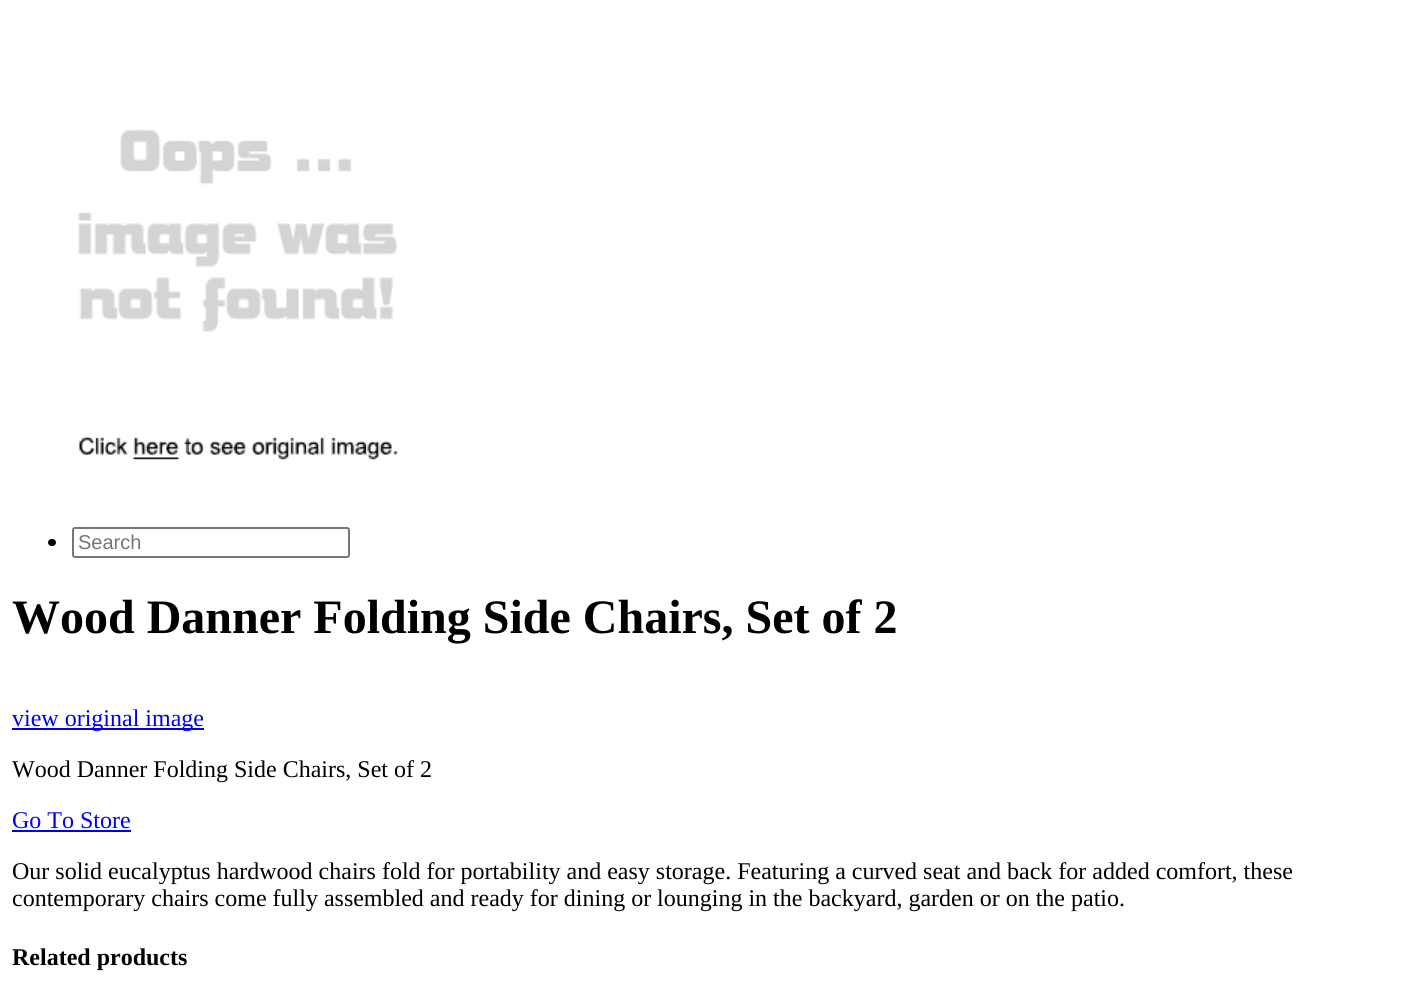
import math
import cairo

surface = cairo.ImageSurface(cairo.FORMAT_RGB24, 1408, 989)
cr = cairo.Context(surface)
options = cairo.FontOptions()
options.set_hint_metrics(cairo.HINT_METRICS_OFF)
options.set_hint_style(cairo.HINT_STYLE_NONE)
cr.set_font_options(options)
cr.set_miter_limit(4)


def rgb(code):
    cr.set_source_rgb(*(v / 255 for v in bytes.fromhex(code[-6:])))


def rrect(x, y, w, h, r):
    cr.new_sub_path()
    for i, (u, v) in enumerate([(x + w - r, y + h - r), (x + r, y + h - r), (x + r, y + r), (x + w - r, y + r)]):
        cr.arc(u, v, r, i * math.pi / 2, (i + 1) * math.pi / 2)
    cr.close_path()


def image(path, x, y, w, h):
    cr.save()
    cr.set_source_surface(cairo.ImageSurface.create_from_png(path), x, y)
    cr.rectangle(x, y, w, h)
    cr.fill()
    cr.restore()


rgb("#ffffff")
cr.paint()
image("img/1.png", 78, 129, 320, 331)
rgb("#000000")
rrect(48, 539, 8, 7, 3.5)
cr.fill()
rrect(73, 528, 276, 29, 2)
rgb("#767676")
cr.stroke()
rgb("#0000ee")
cr.rectangle(12, 728, 192, 2)
cr.fill()
cr.rectangle(12, 830, 119, 2)
cr.fill()
cr.select_font_face("Liberation Sans")
cr.set_font_size(20)
rgb("#757575")
cr.move_to(78, 549)
cr.show_text("Search")
cr.select_font_face("Liberation Serif", cairo.FONT_SLANT_NORMAL, cairo.FONT_WEIGHT_BOLD)
cr.set_font_size(48)
rgb("#000000")
cr.move_to(12, 633)
cr.show_text("Wood Danner Folding Side Chairs, Set of 2")
cr.select_font_face("Liberation Serif")
cr.set_font_size(24)
rgb("#0000ee")
cr.move_to(12, 726)
cr.show_text("view original image")
rgb("#000000")
cr.move_to(12, 777)
cr.show_text("Wood Danner Folding Side Chairs, Set of 2")
rgb("#0000ee")
cr.move_to(12, 828)
cr.show_text("Go To Store")
rgb("#000000")
cr.move_to(12, 879)
cr.show_text("Our solid eucalyptus hardwood chairs fold for portability and easy storage. Featuring a curved seat and back for added comfort, these")
cr.move_to(12, 906)
cr.show_text("contemporary chairs come fully assembled and ready for dining or lounging in the backyard, garden or on the patio.")
cr.select_font_face("Liberation Serif", cairo.FONT_SLANT_NORMAL, cairo.FONT_WEIGHT_BOLD)
cr.move_to(12, 965)
cr.show_text("Related products")
surface.write_to_png("page.png")
